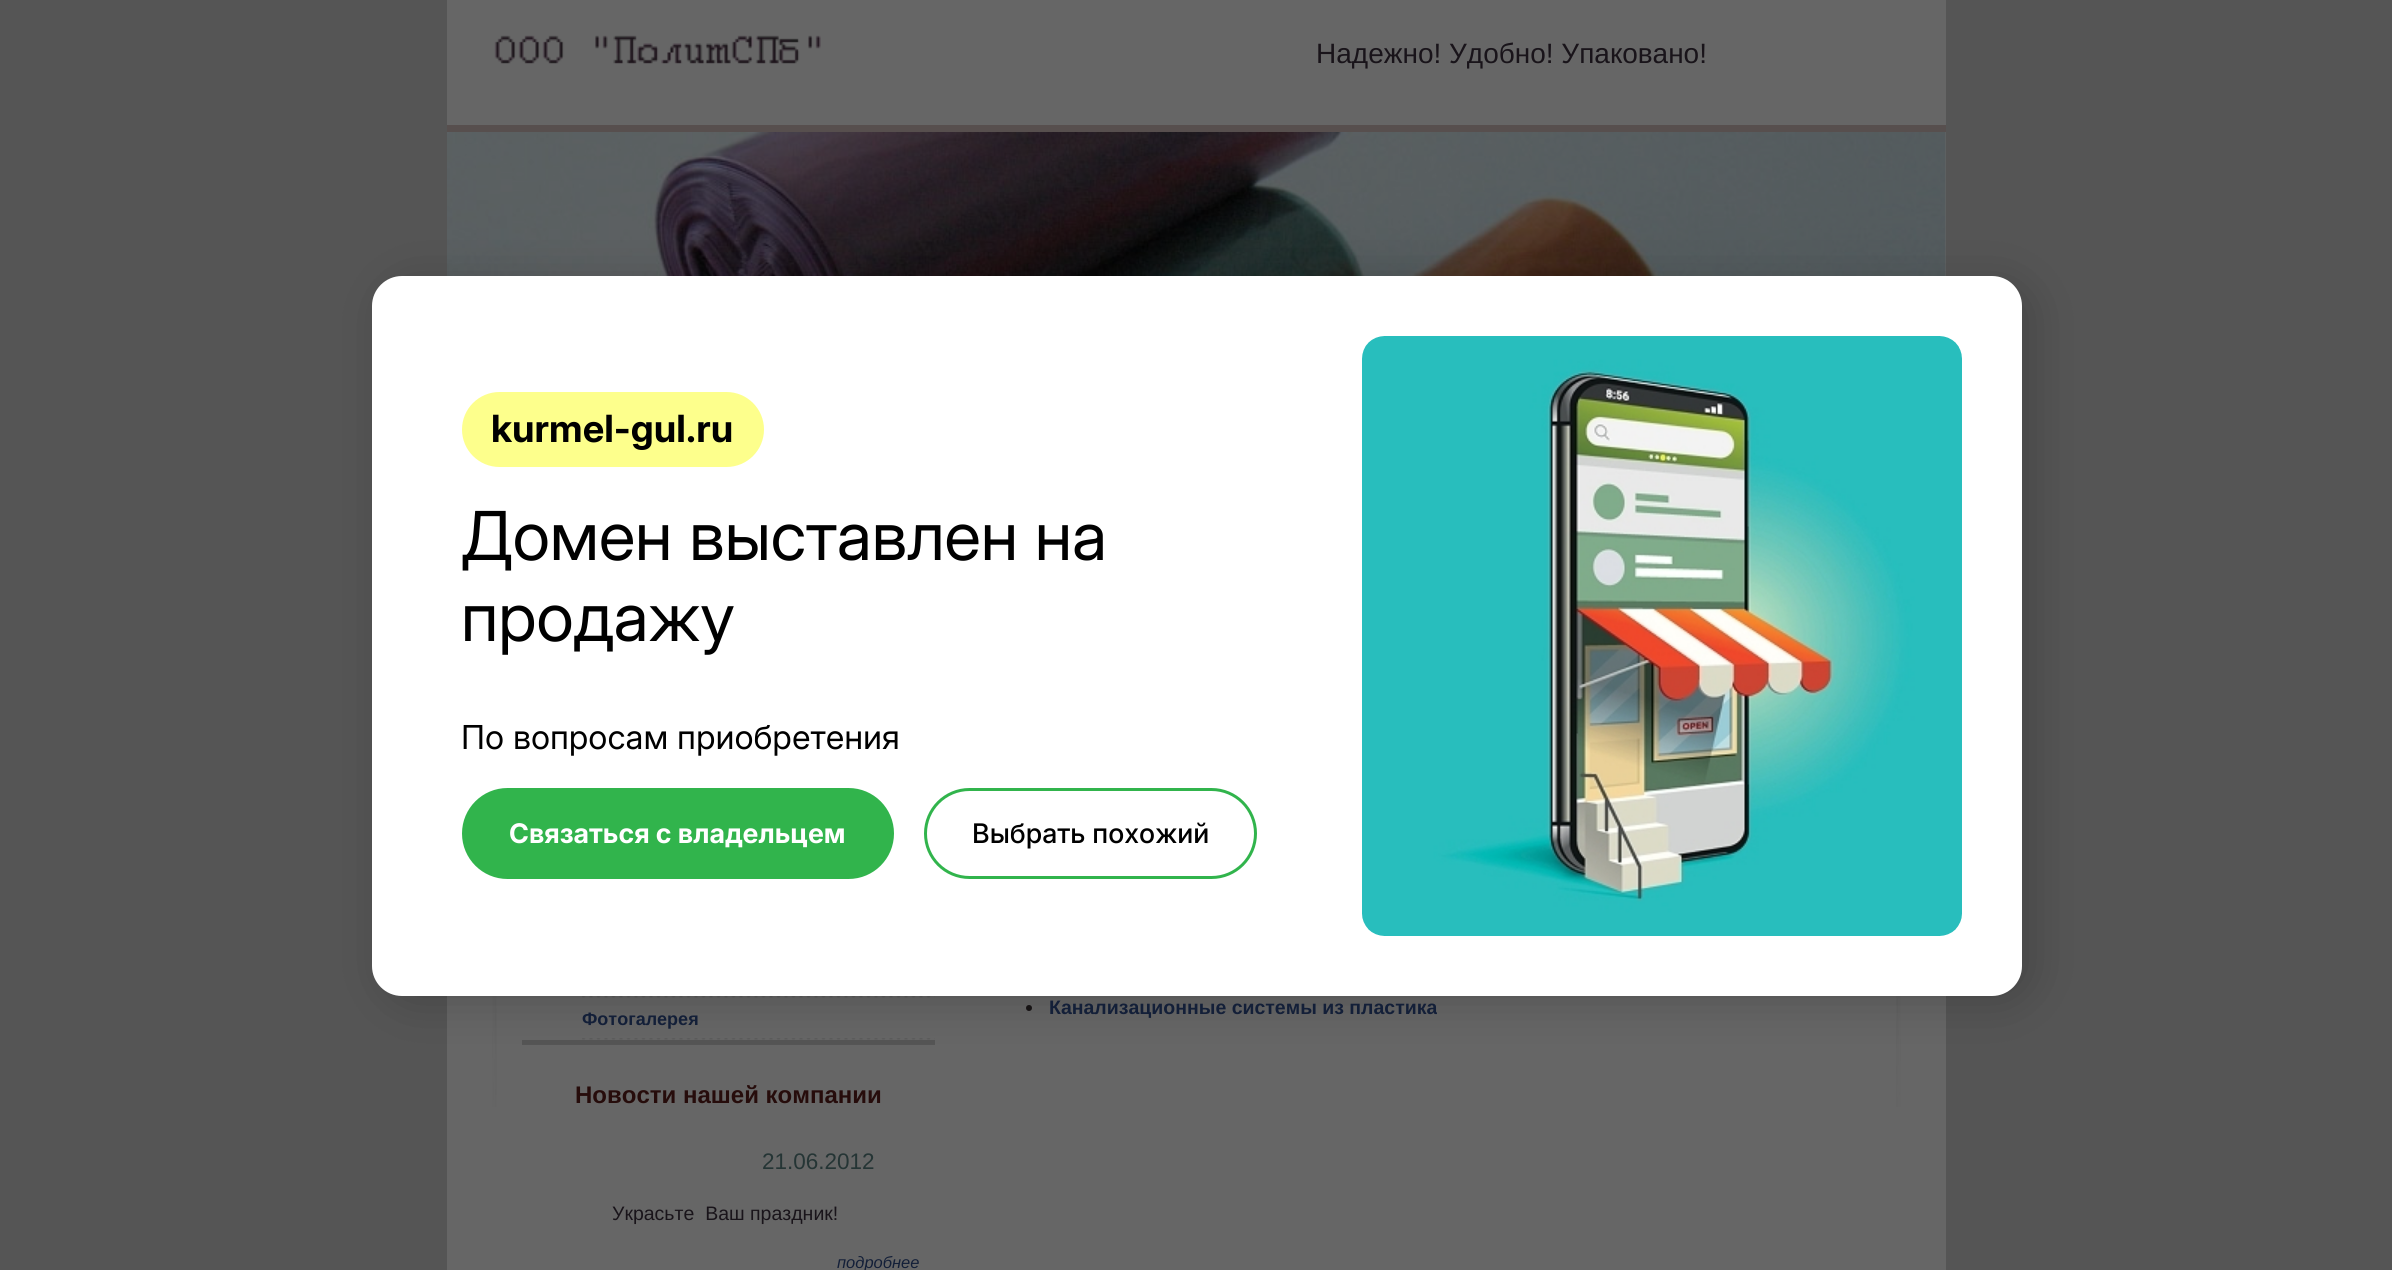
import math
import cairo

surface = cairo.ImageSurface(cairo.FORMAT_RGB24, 2392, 1270)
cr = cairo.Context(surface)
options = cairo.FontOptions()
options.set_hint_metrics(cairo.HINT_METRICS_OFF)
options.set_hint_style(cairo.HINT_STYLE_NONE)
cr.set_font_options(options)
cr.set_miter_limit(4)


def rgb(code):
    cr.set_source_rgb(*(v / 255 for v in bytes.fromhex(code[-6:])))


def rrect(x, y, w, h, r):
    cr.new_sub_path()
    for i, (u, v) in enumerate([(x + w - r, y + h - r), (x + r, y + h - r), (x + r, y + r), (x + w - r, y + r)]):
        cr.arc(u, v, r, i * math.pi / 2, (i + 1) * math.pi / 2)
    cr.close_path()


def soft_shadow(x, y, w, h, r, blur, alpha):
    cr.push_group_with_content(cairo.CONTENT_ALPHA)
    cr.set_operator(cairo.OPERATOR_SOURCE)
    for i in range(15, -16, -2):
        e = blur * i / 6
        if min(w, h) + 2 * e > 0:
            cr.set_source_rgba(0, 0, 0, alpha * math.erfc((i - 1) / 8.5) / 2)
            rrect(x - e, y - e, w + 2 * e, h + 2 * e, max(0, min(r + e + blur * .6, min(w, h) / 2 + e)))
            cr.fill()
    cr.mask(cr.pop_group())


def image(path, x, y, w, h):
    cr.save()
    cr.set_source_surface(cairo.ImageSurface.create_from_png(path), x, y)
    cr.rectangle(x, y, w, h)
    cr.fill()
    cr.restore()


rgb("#555555")
cr.paint()
rgb("#666666")
cr.rectangle(447, 0, 1499, 1270)
cr.fill()
image("img/1.png", 494, 35, 327, 29)
rgb("#574f4e")
cr.rectangle(447, 125, 1499, 7)
cr.fill()
image("img/2.png", 447, 132, 1499, 144)
image("img/3.png", 492, 996, 1409, 111)
rgb("#181416")
cr.arc(1029, 1008, 3, 0, 2 * math.pi)
cr.fill()
rgb("#555555")
cr.rectangle(522, 1040, 413, 5)
cr.fill()
image("img/4.png", 582, 996, 353, 2)
image("img/4.png", 582, 1038, 353, 2)
rgb("#000000")
soft_shadow(383, 282, 1650, 720, 30, 22.5, 0.2)
rgb("#ffffff")
rrect(372, 276, 1650, 720, 30)
cr.fill()
rgb("#fdff8c")
rrect(462, 392, 302, 75, 37.5)
cr.fill()
rgb("#31b44c")
rrect(463.5, 789.5, 429, 88, 44)
cr.fill_preserve()
cr.set_line_width(3)
cr.stroke()
rrect(925.5, 789.5, 330, 88, 44)
cr.stroke()
image("img/5.png", 1362, 336, 600, 600)
cr.select_font_face("Liberation Sans")
cr.set_font_size(28)
rgb("#19141a")
cr.move_to(1316, 63)
cr.show_text("Надежно! Удобно! Упаковано!")
cr.select_font_face("Liberation Sans", cairo.FONT_SLANT_NORMAL, cairo.FONT_WEIGHT_BOLD)
cr.set_font_size(19.5)
rgb("#131f38")
cr.move_to(1049, 1014)
cr.show_text("Канализационные системы из пластика")
cr.set_font_size(18)
cr.move_to(582, 1025)
cr.show_text("Фотогалерея")
cr.set_font_size(24)
rgb("#260c0b")
cr.move_to(575, 1103)
cr.show_text("Новости нашей компании")
cr.select_font_face("Liberation Sans")
cr.set_font_size(22.5)
rgb("#253535")
cr.move_to(762, 1169)
cr.show_text("21.06.2012")
cr.set_font_size(19.5)
rgb("#19141a")
cr.move_to(612, 1220)
cr.show_text("Украсьте  Ваш праздник!")
cr.select_font_face("Liberation Sans", cairo.FONT_SLANT_ITALIC)
cr.set_font_size(16.5)
rgb("#131f38")
cr.move_to(837, 1268)
cr.show_text("подробнее")
cr.select_font_face("Inter", cairo.FONT_SLANT_NORMAL, cairo.FONT_WEIGHT_BOLD)
cr.set_font_size(37.5)
rgb("#000000")
cr.move_to(491, 442)
cr.show_text("kurmel-gul.ru")
cr.select_font_face("Inter")
cr.set_font_size(67.5)
cr.move_to(461, 560)
cr.show_text("Домен выставлен на")
cr.move_to(461, 641)
cr.show_text("продажу")
cr.select_font_face("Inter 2")
cr.set_font_size(33)
cr.move_to(461, 749)
cr.show_text("По вопросам приобретения")
cr.select_font_face("Inter 2", cairo.FONT_SLANT_NORMAL, cairo.FONT_WEIGHT_BOLD)
cr.set_font_size(27)
rgb("#ffffff")
cr.move_to(509, 843)
cr.show_text("Связаться с владельцем")
cr.select_font_face("Inter Medium")
rgb("#000000")
cr.move_to(972, 843)
cr.show_text("Выбрать похожий")
surface.write_to_png("page.png")
